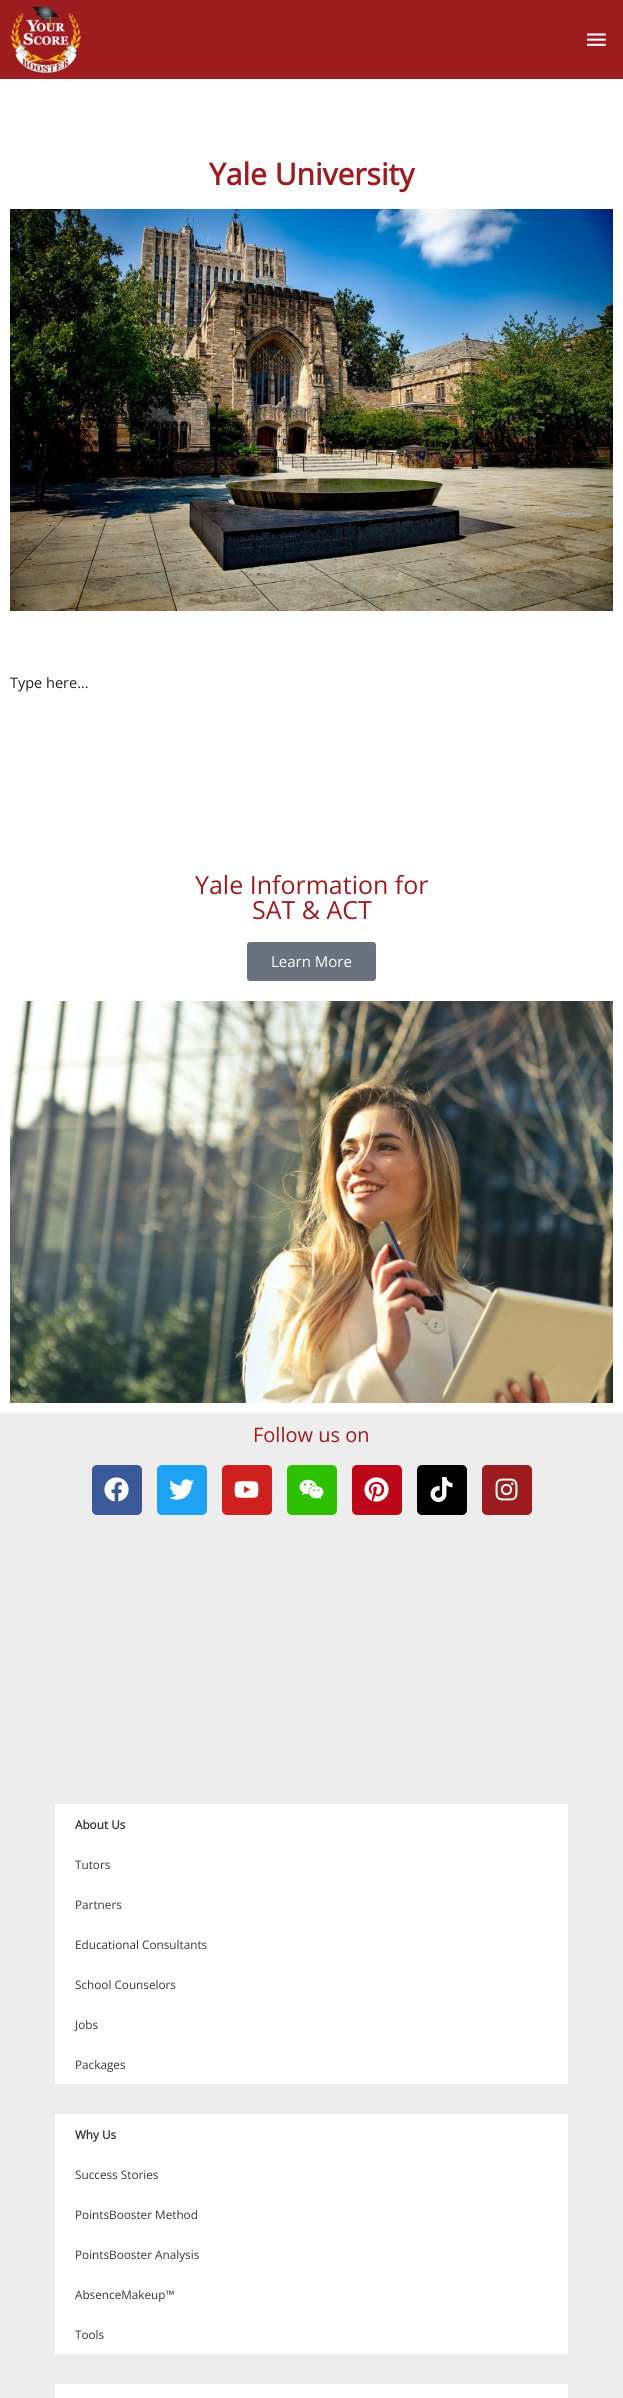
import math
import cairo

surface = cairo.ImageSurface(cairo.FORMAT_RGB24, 623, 2398)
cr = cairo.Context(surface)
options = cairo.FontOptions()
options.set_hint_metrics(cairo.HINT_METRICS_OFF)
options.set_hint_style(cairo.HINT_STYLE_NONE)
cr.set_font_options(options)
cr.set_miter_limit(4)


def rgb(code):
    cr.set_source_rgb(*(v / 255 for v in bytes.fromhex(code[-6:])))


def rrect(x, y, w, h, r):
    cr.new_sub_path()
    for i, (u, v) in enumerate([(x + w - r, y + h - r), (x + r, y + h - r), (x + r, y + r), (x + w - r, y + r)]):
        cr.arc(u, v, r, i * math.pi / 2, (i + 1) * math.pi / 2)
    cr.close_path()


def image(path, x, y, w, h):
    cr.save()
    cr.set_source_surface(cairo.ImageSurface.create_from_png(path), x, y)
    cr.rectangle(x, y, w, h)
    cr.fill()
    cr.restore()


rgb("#ffffff")
cr.paint()
rgb("#9c1c20")
cr.rectangle(0, 0, 623, 79)
cr.fill()
image("img/1.png", 10, 6, 72, 68)
image("img/2.png", 587, 33, 19, 13)
image("img/3.png", 10, 209, 603, 402)
rgb("#69727d")
rrect(247, 942, 129, 39, 3)
cr.fill()
image("img/4.png", 10, 1001, 603, 402)
rgb("#ededed")
cr.rectangle(0, 1413, 623, 985)
cr.fill()
rgb("#3b5998")
rrect(92, 1465, 50, 50, 5)
cr.fill()
image("img/5.png", 104, 1477, 25, 25)
rgb("#1da1f2")
rrect(157, 1465, 50, 50, 5)
cr.fill()
image("img/6.png", 169, 1479, 25, 21)
rgb("#cd201f")
rrect(222, 1465, 50, 50, 5)
cr.fill()
image("img/7.png", 234, 1481, 25, 17)
rgb("#2dc101")
rrect(287, 1465, 50, 50, 5)
cr.fill()
image("img/8.png", 299, 1479, 25, 21)
rgb("#bd081c")
rrect(352, 1465, 50, 50, 5)
cr.fill()
image("img/9.png", 364, 1477, 25, 25)
rgb("#000000")
rrect(417, 1465, 50, 50, 5)
cr.fill()
image("img/10.png", 430, 1477, 23, 25)
rgb("#9c1c20")
rrect(482, 1465, 50, 50, 5)
cr.fill()
image("img/11.png", 495, 1478, 23, 23)
for x, y, w, h, color in [
    (55, 1804, 513, 280, "#ffffff"),
    (55, 2114, 513, 240, "#ffffff"),
    (55, 2384, 513, 14, "#ffffff"),
]:
    rgb(color)
    cr.rectangle(x, y, w, h)
    cr.fill()
cr.select_font_face("Open Sans", cairo.FONT_SLANT_NORMAL, cairo.FONT_WEIGHT_BOLD)
cr.set_font_size(30)
rgb("#9c1c20")
cr.move_to(209, 185)
cr.show_text("Yale University")
cr.select_font_face("Open Sans")
cr.set_font_size(14.5)
rgb("#222121")
cr.move_to(10, 688)
cr.show_text("Type here…")
cr.set_font_size(25)
rgb("#9c1c20")
cr.move_to(195, 894)
cr.show_text("Yale Information for")
cr.move_to(252, 919)
cr.show_text("SAT & ACT")
cr.set_font_size(15)
rgb("#ffffff")
cr.move_to(271, 967)
cr.show_text("Learn More")
cr.set_font_size(20)
rgb("#9c1c20")
cr.move_to(253, 1442)
cr.show_text("Follow us on")
cr.select_font_face("Open Sans", cairo.FONT_SLANT_NORMAL, cairo.FONT_WEIGHT_BOLD)
cr.set_font_size(11.75)
rgb("#33373d")
cr.move_to(75, 1829)
cr.show_text("About Us")
cr.select_font_face("Open Sans")
for x, y, s in [
    (75, 1869, "Tutors"),
    (75, 1909, "Partners"),
    (75, 1949, "Educational Consultants"),
    (75, 1989, "School Counselors"),
    (75, 2029, "Jobs"),
    (75, 2069, "Packages"),
]:
    cr.move_to(x, y)
    cr.show_text(s)
cr.select_font_face("Open Sans", cairo.FONT_SLANT_NORMAL, cairo.FONT_WEIGHT_BOLD)
cr.move_to(75, 2139)
cr.show_text("Why Us")
cr.select_font_face("Open Sans")
for x, y, s in [
    (75, 2179, "Success Stories"),
    (75, 2219, "PointsBooster Method"),
    (75, 2259, "PointsBooster Analysis"),
    (75, 2299, "AbsenceMakeup™"),
    (75, 2339, "Tools"),
]:
    cr.move_to(x, y)
    cr.show_text(s)
surface.write_to_png("page.png")
